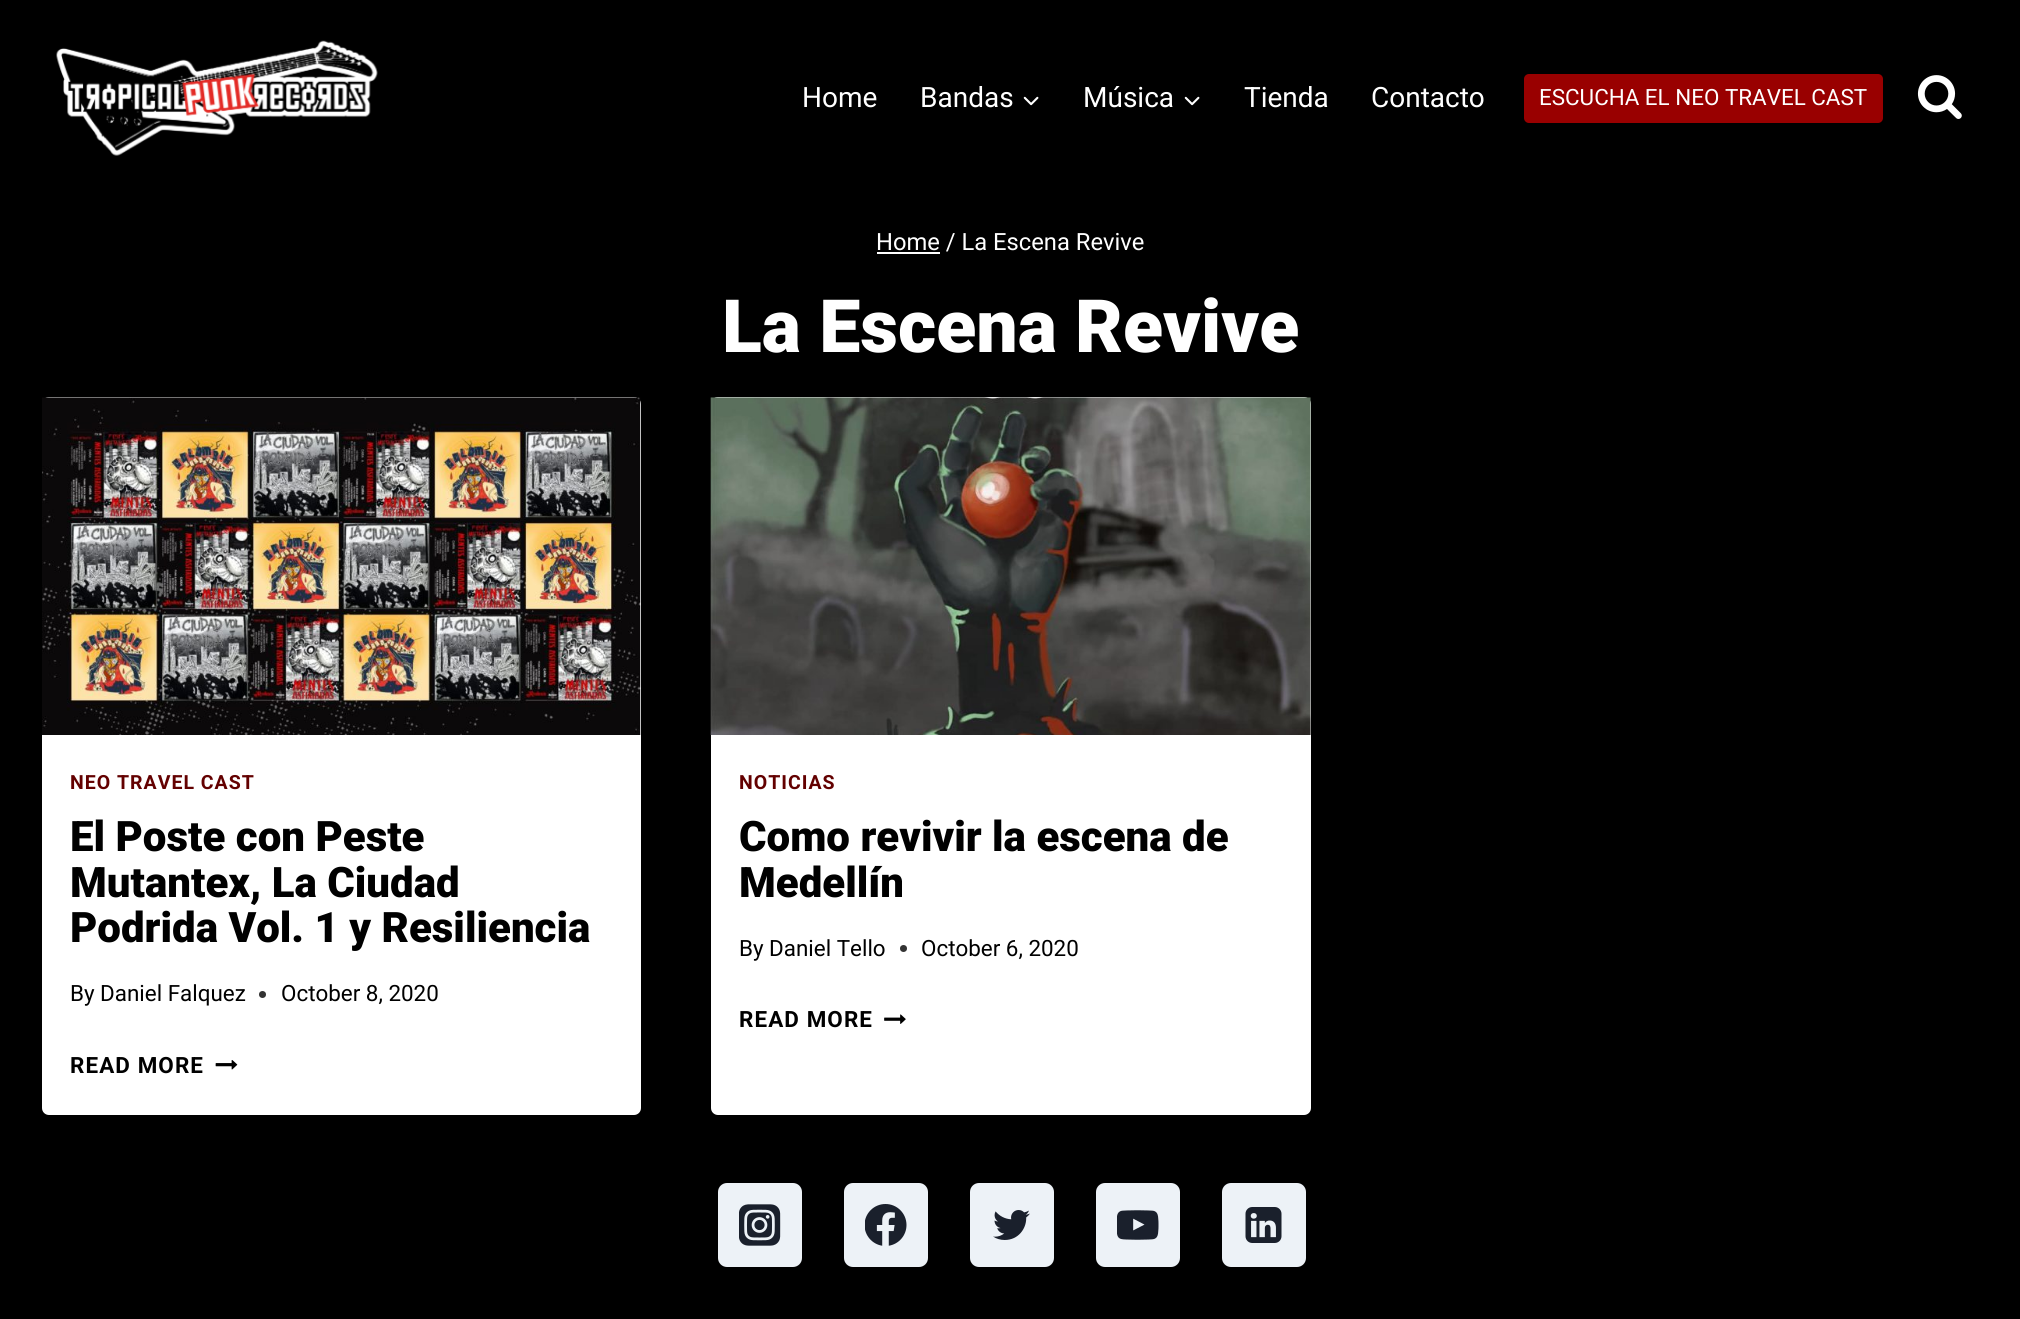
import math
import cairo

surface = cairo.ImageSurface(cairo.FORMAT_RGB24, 2020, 1319)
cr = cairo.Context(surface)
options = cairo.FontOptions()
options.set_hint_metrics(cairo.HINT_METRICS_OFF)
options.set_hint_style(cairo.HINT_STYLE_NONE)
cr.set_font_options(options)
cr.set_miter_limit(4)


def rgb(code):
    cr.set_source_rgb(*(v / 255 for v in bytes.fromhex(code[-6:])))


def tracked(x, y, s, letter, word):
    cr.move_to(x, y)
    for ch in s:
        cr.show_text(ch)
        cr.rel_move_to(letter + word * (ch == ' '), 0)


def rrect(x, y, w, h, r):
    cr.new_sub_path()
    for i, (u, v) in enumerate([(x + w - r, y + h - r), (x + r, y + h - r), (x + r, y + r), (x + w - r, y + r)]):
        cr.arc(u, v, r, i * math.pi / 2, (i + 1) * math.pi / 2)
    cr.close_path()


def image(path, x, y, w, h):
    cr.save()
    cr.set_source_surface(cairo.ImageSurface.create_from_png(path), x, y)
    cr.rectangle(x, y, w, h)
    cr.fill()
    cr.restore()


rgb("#000000")
cr.paint()
image("img/1.png", 56, 40, 322, 116)
image("img/2.png", 1023, 96, 16, 10)
image("img/2.png", 1184, 96, 16, 10)
rgb("#990000")
rrect(1524, 74, 359, 49, 5)
cr.fill()
image("img/3.png", 1917, 75, 45, 44)
rgb("#ffffff")
cr.rectangle(877, 252, 63, 2)
cr.fill()
rrect(42, 397, 599, 718, 7)
cr.fill()
image("img/4.png", 42, 397, 599, 338)
rgb("#333333")
cr.arc(262.5, 994.5, 3.5, 0, 2 * math.pi)
cr.fill()
image("img/5.png", 215, 1060, 23, 10)
rgb("#ffffff")
rrect(711, 397, 600, 718, 7)
cr.fill()
image("img/6.png", 710, 397, 601, 338)
rgb("#333333")
cr.arc(903.5, 948.5, 3.5, 0, 2 * math.pi)
cr.fill()
image("img/7.png", 884, 1014, 22, 10)
rgb("#edf2f7")
rrect(718, 1183, 84, 84, 9)
cr.fill()
image("img/8.png", 739, 1204, 42, 42)
rrect(844, 1183, 84, 84, 9)
cr.fill()
image("img/9.png", 865, 1204, 42, 42)
rrect(970, 1183, 84, 84, 9)
cr.fill()
image("img/10.png", 993, 1210, 37, 30)
rrect(1096, 1183, 84, 84, 9)
cr.fill()
image("img/11.png", 1117, 1210, 42, 30)
rrect(1222, 1183, 84, 84, 9)
cr.fill()
image("img/12.png", 1245, 1207, 37, 36)
cr.select_font_face("Roboto")
cr.set_font_size(28)
rgb("#ffffff")
for x, y, s in [
    (802, 107, "Home"),
    (920, 107, "Bandas"),
    (1083, 107, "Música"),
    (1244, 107, "Tienda"),
    (1371, 107, "Contacto"),
]:
    cr.move_to(x, y)
    cr.show_text(s)
cr.set_font_size(22.4)
cr.move_to(1539, 105)
cr.show_text("ESCUCHA EL NEO TRAVEL CAST")
cr.set_font_size(23.75)
cr.move_to(876, 250)
cr.show_text("Home / La Escena Revive")
cr.select_font_face("Roboto Black")
cr.set_font_size(73.5)
cr.move_to(722, 352)
cr.show_text("La Escena Revive")
cr.select_font_face("Roboto", cairo.FONT_SLANT_NORMAL, cairo.FONT_WEIGHT_BOLD)
cr.set_font_size(19.5)
rgb("#630000")
tracked(70, 789, "NEO TRAVEL CAST", 1, 0)
cr.select_font_face("Roboto Black")
cr.set_font_size(42)
rgb("#000000")
for x, y, s in [
    (70, 851, "El Poste con Peste"),
    (70, 897, "Mutantex, La Ciudad"),
    (70, 942, "Podrida Vol. 1 y Resiliencia"),
]:
    cr.move_to(x, y)
    cr.show_text(s)
cr.select_font_face("Roboto")
cr.set_font_size(22.4)
cr.move_to(70, 1001)
cr.show_text("By Daniel Falquez")
cr.move_to(281, 1001)
cr.show_text("October 8, 2020")
cr.select_font_face("Roboto", cairo.FONT_SLANT_NORMAL, cairo.FONT_WEIGHT_BOLD)
tracked(70, 1073, "READ MORE", 1.1, 0)
cr.set_font_size(19.5)
rgb("#630000")
tracked(739, 789, "NOTICIAS", 1, 0)
cr.select_font_face("Roboto Black")
cr.set_font_size(42)
rgb("#000000")
cr.move_to(739, 851)
cr.show_text("Como revivir la escena de")
cr.move_to(739, 897)
cr.show_text("Medellín")
cr.select_font_face("Roboto")
cr.set_font_size(22.4)
cr.move_to(739, 956)
cr.show_text("By Daniel Tello")
cr.move_to(921, 956)
cr.show_text("October 6, 2020")
cr.select_font_face("Roboto", cairo.FONT_SLANT_NORMAL, cairo.FONT_WEIGHT_BOLD)
tracked(739, 1027, "READ MORE", 1.1, 0)
surface.write_to_png("page.png")
